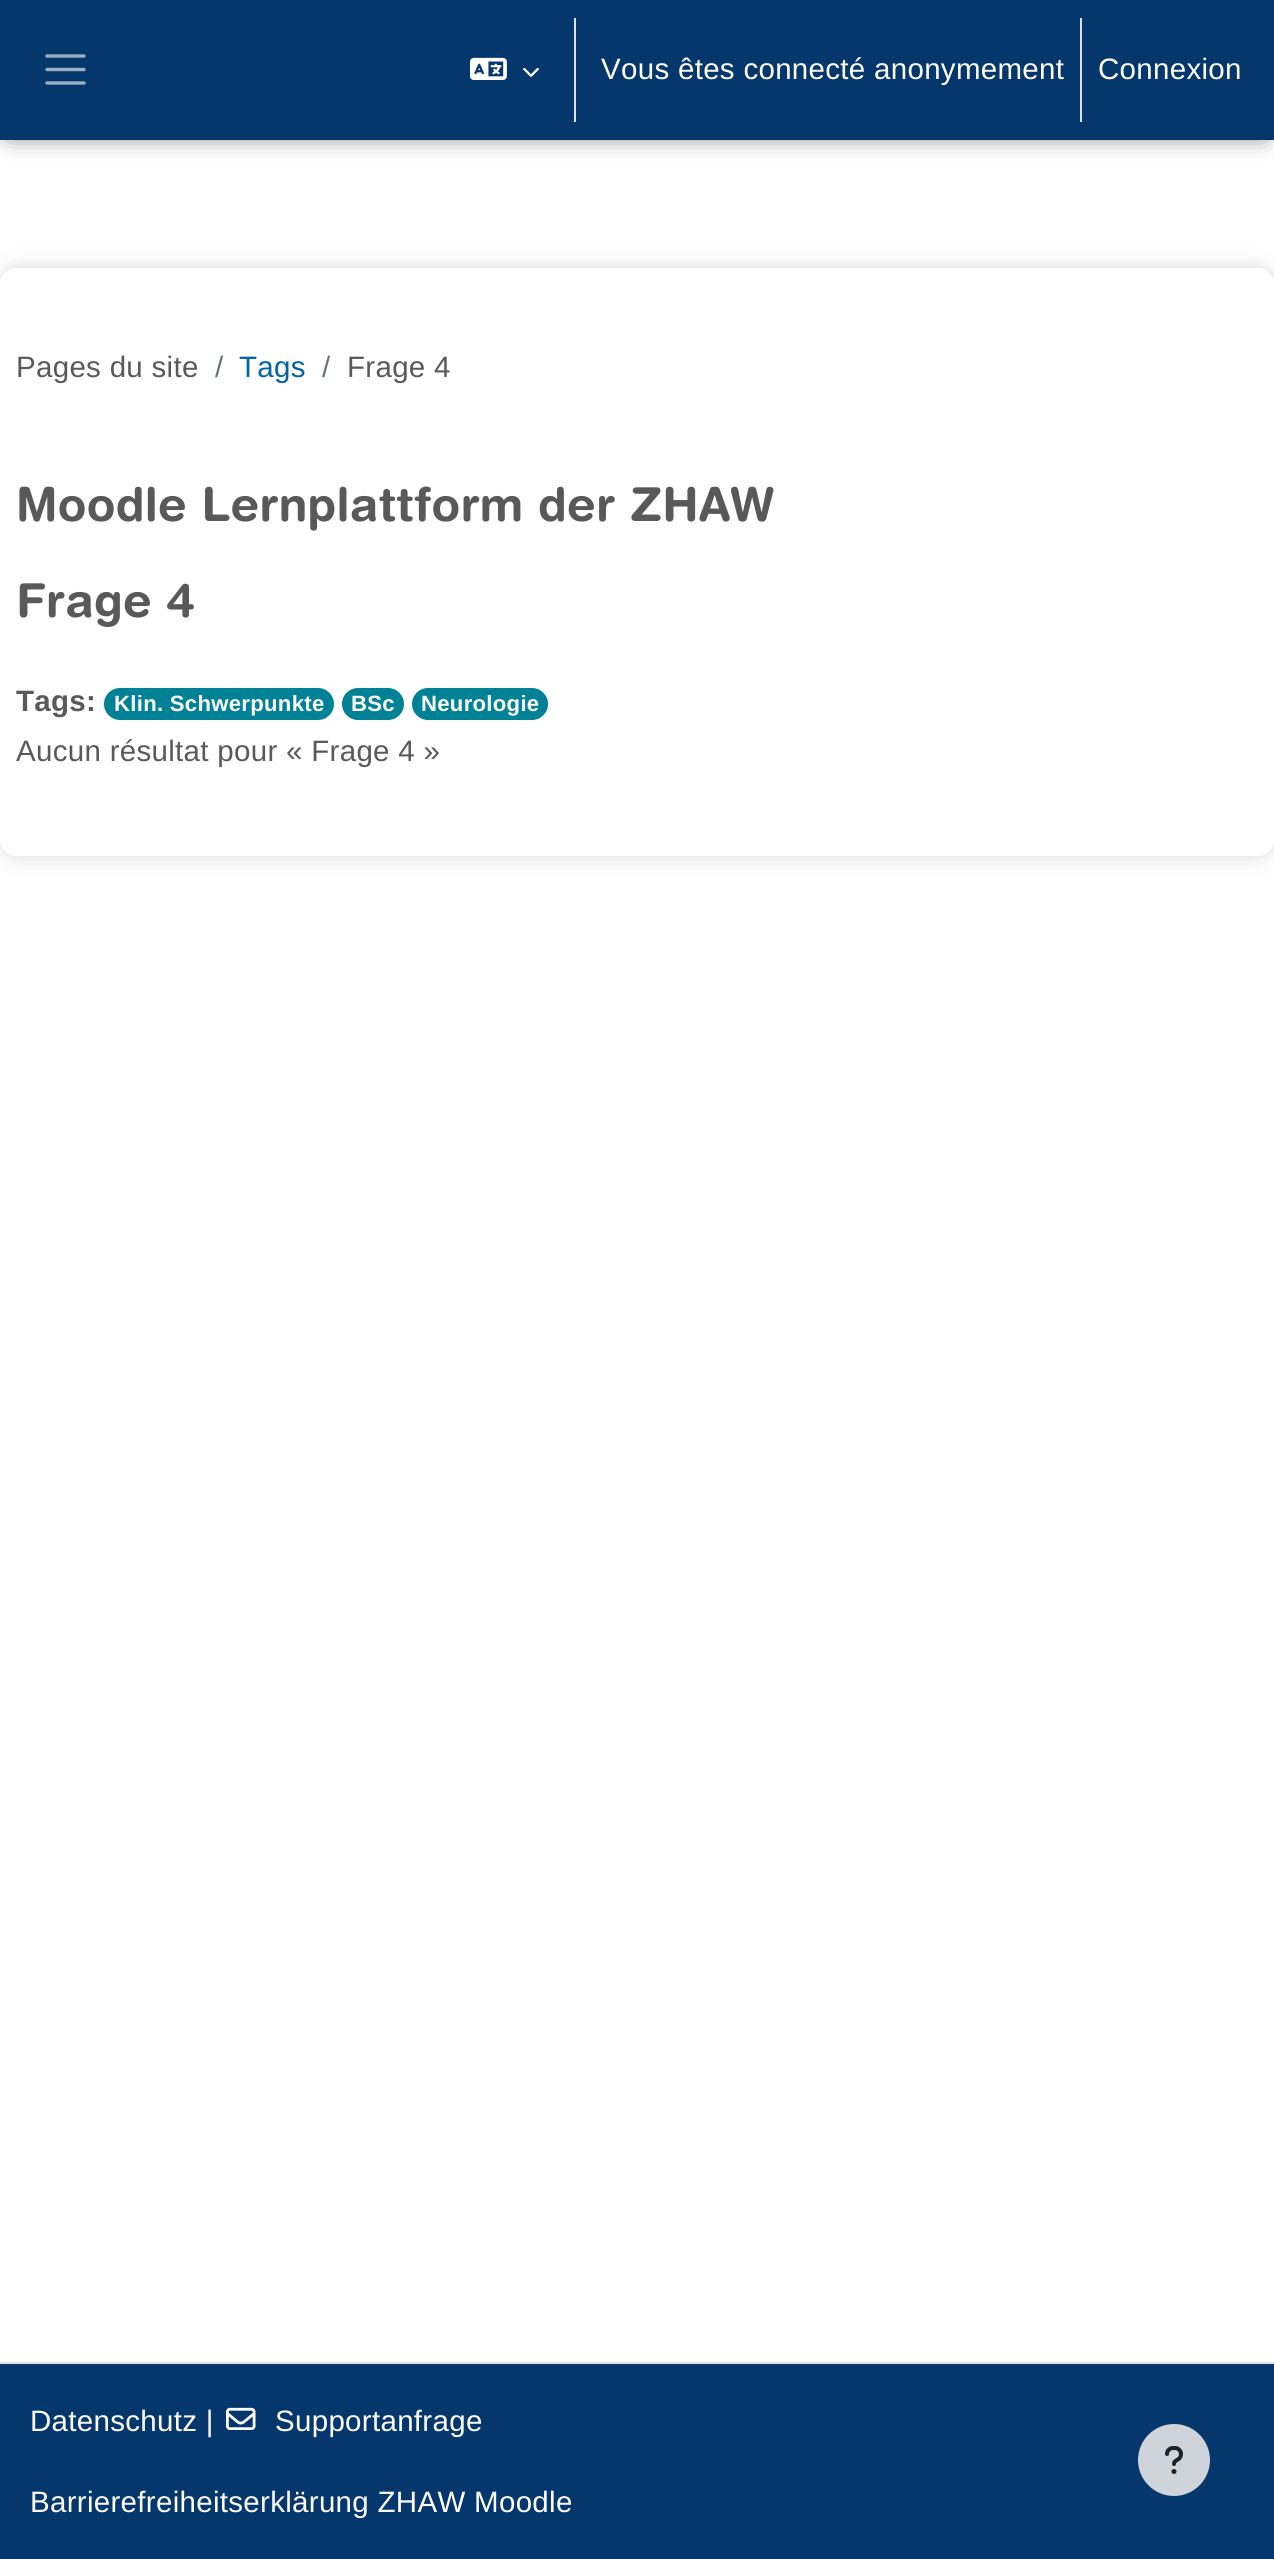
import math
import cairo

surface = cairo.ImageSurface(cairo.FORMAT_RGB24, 1274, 2559)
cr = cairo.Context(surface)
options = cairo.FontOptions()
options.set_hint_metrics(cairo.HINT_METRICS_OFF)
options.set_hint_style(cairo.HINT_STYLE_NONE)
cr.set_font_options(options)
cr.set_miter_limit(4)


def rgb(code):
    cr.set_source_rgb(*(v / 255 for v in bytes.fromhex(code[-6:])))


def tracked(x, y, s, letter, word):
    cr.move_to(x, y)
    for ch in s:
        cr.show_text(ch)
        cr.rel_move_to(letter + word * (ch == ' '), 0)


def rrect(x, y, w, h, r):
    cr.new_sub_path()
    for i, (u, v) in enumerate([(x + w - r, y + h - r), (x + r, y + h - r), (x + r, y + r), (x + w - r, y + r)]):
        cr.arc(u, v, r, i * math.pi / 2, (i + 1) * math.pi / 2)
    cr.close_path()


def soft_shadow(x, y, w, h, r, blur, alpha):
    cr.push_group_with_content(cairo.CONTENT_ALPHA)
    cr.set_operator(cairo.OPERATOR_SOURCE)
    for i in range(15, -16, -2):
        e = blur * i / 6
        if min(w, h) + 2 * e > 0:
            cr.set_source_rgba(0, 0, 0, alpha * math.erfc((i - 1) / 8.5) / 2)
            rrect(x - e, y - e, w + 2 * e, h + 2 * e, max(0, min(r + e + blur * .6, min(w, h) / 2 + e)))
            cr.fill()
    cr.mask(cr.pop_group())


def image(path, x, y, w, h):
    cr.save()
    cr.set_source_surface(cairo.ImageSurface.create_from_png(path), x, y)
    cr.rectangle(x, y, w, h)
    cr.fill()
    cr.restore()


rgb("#ffffff")
cr.paint()
rgb("#000000")
soft_shadow(10, 10, 1254, 120, 0, 13, 1)
rgb("#05366c")
cr.rectangle(0, 0, 1274, 140)
cr.fill()
cr.new_path()
cr.move_to(47, 56)
cr.line_to(84, 56)
cr.move_to(47, 69.5)
cr.line_to(84, 69.5)
cr.move_to(47, 83)
cr.line_to(84, 83)
rgb("#9bafc4")
cr.set_line_width(3.4)
cr.set_line_cap(cairo.LINE_CAP_ROUND)
cr.stroke()
image("img/1.png", 470, 57, 37, 23)
image("img/2.png", 523, 67, 16, 10)
rgb("#dee2e6")
cr.rectangle(574, 18, 2, 104)
cr.fill()
cr.rectangle(1080, 18, 2, 104)
cr.fill()
rgb("#847c7c")
soft_shadow(10, 278, 1254, 568, 6, 13, 0.72)
rgb("#ffffff")
rrect(0, 268, 1274, 588, 16)
cr.fill()
rgb("#008196")
rrect(104, 688, 230, 32, 16)
cr.fill()
rrect(342, 688, 62, 32, 16)
cr.fill()
rrect(412, 688, 136, 32, 16)
cr.fill()
rgb("#05366c")
cr.rectangle(0, 2364, 1274, 195)
cr.fill()
rgb("#dee2e6")
cr.rectangle(0, 2362, 1274, 2)
cr.fill()
image("img/3.png", 226, 2407, 30, 23)
rgb("#ced4da")
cr.arc(1174, 2460, 36, 0, 2 * math.pi)
cr.fill()
image("img/4.png", 1165, 2446, 18, 28)
cr.select_font_face("Liberation Sans")
cr.set_font_size(29.5)
rgb("#ffffff")
tracked(601, 79, "Vous êtes connecté anonymement", 0.3, 0)
tracked(1098, 79, "Connexion", 0.3, 0)
rgb("#595959")
tracked(16, 377, "Pages du site", 0.3, 0)
rgb("#6a737b")
tracked(215, 377, "/", 0.3, 0)
rgb("#0064a6")
tracked(239, 377, "Tags", 0.3, 0)
rgb("#6a737b")
tracked(322, 377, "/", 0.3, 0)
rgb("#595959")
tracked(347, 377, "Frage 4", 0.3, 0)
cr.save()
cr.rectangle(16, 466, 758, 88)
cr.clip()
cr.select_font_face("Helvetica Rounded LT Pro", cairo.FONT_SLANT_NORMAL, cairo.FONT_WEIGHT_BOLD)
cr.set_font_size(46.8)
tracked(16, 521, "Moodle Lernplattform der ZHAW", 0.3, 0)
cr.restore()
cr.select_font_face("Helvetica Rounded LT Pro", cairo.FONT_SLANT_NORMAL, cairo.FONT_WEIGHT_BOLD)
cr.set_font_size(46.8)
tracked(16, 617, "Frage 4", 0.3, 0)
cr.select_font_face("Liberation Sans", cairo.FONT_SLANT_NORMAL, cairo.FONT_WEIGHT_BOLD)
cr.set_font_size(29.5)
tracked(16, 711, "Tags:", 0.3, 0)
cr.set_font_size(22.1)
rgb("#ffffff")
for x, y, s in [
    (114, 711, "Klin. Schwerpunkte"),
    (351, 711, "BSc"),
    (421, 711, "Neurologie"),
]:
    tracked(x, y, s, 0.3, 0)
cr.select_font_face("Liberation Sans")
cr.set_font_size(29.5)
rgb("#595959")
tracked(16, 761, "Aucun résultat pour « Frage 4 »", 0.3, 0)
rgb("#ffffff")
for x, y, s in [
    (30, 2431, "Datenschutz |"),
    (275, 2431, "Supportanfrage"),
    (30, 2512, "Barrierefreiheitserklärung ZHAW Moodle"),
]:
    tracked(x, y, s, 0.3, 0)
surface.write_to_png("page.png")
